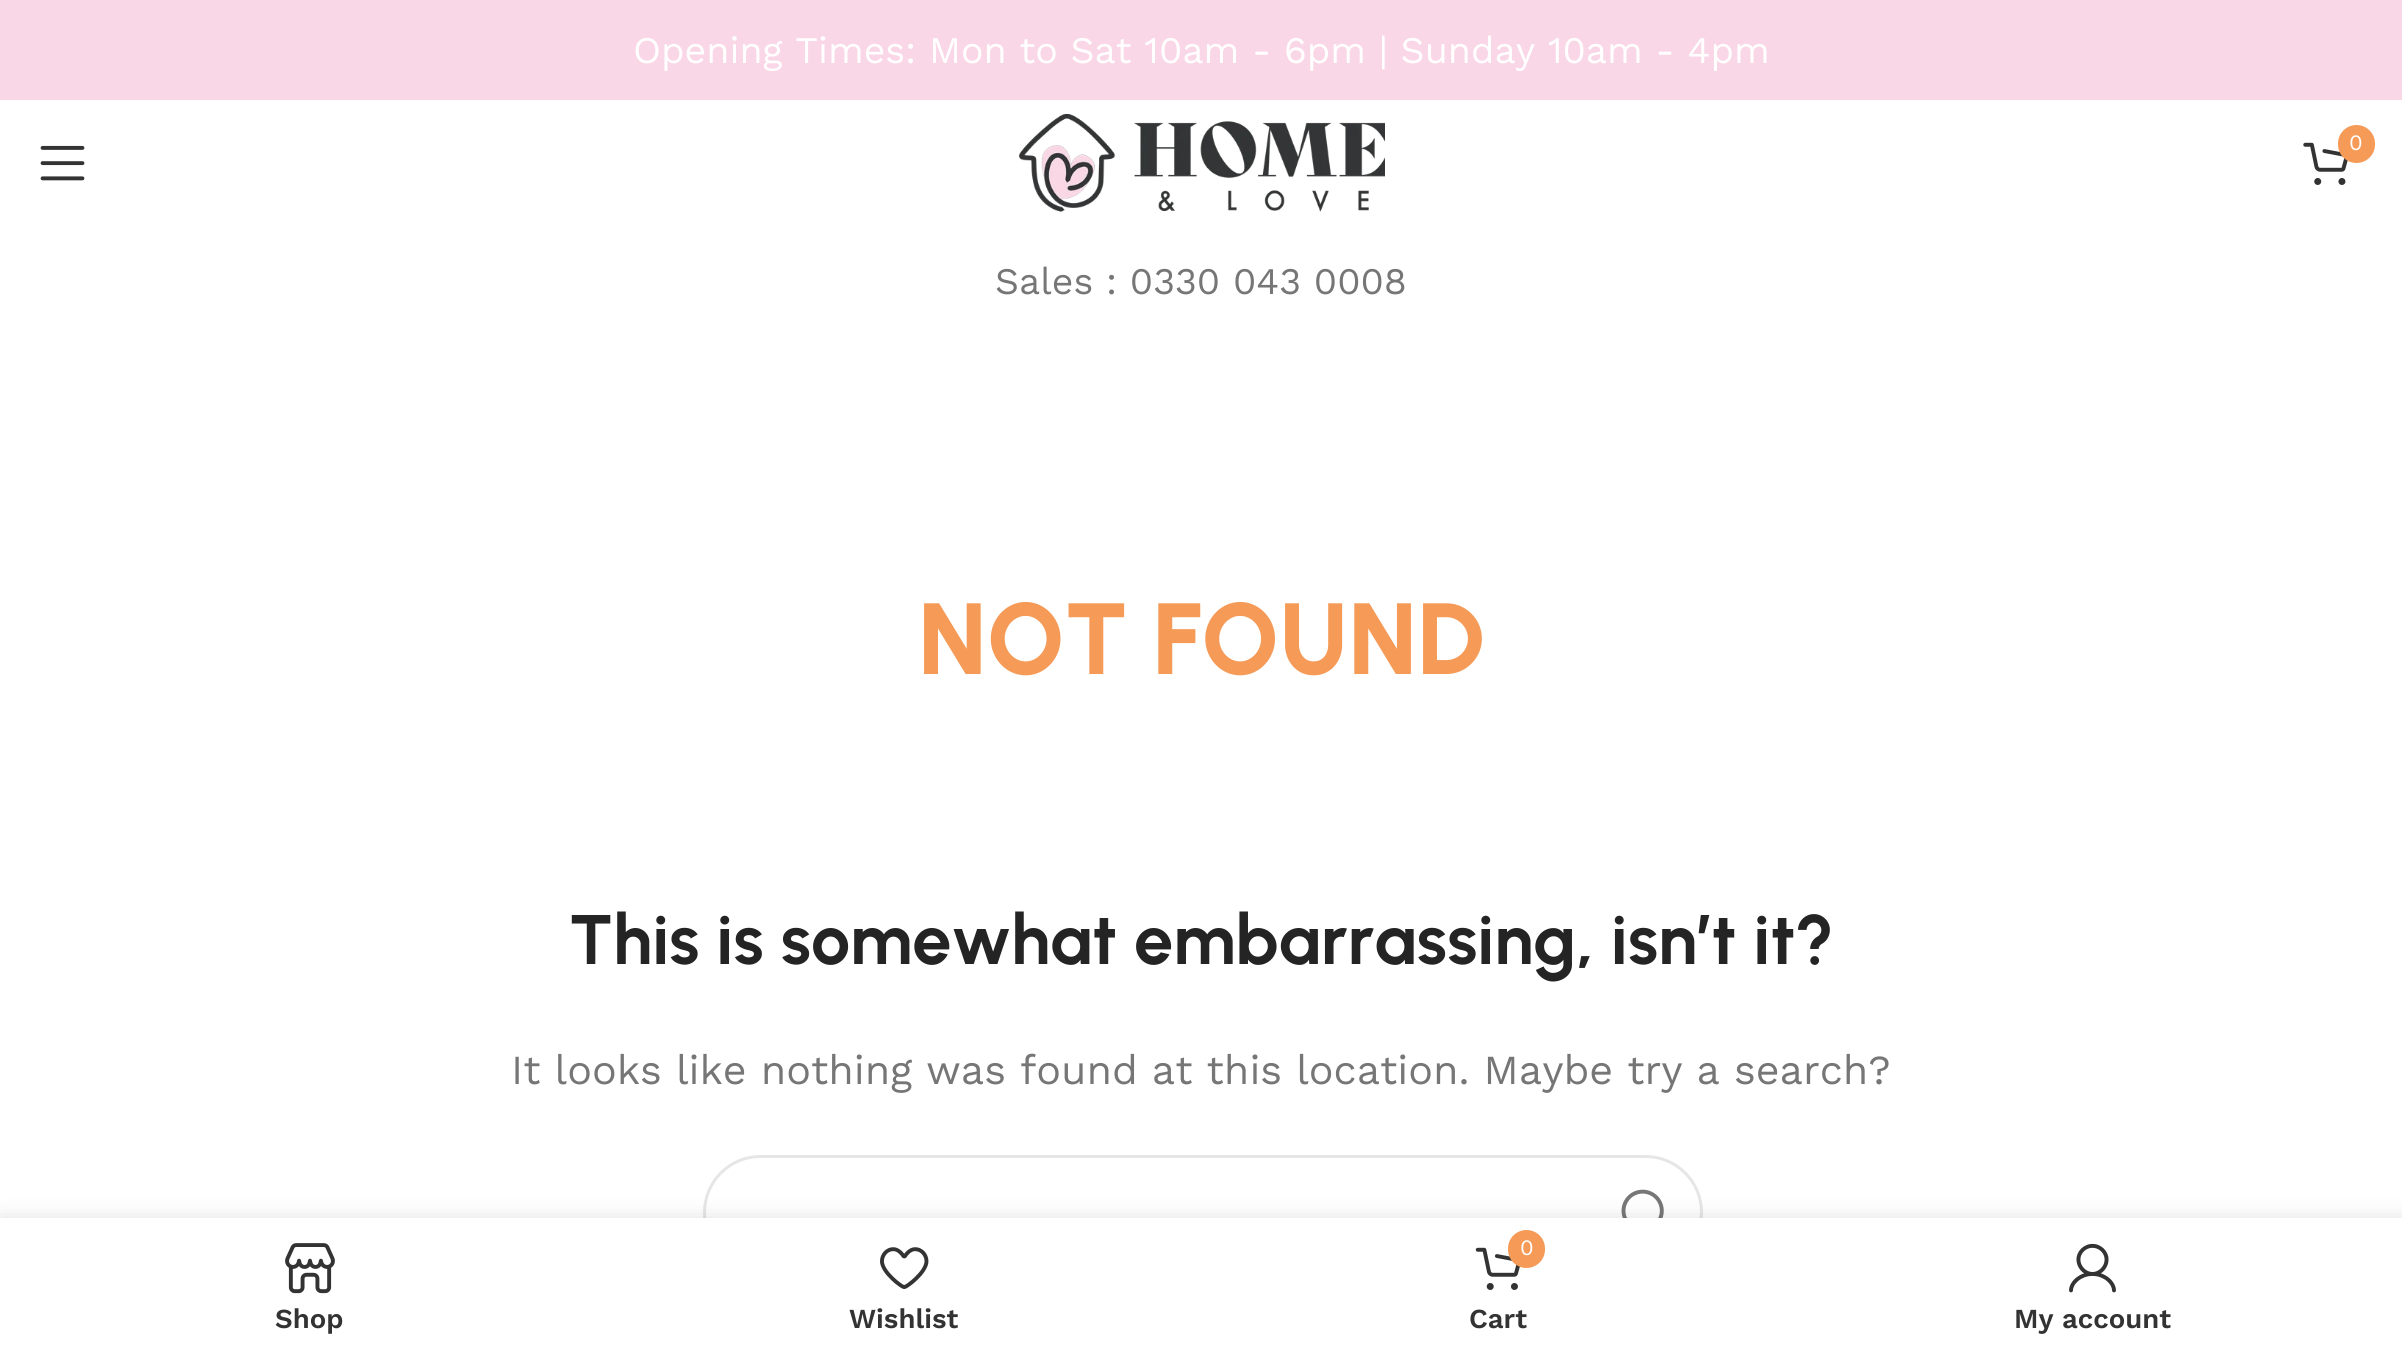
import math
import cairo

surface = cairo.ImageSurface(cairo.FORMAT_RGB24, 2402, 1354)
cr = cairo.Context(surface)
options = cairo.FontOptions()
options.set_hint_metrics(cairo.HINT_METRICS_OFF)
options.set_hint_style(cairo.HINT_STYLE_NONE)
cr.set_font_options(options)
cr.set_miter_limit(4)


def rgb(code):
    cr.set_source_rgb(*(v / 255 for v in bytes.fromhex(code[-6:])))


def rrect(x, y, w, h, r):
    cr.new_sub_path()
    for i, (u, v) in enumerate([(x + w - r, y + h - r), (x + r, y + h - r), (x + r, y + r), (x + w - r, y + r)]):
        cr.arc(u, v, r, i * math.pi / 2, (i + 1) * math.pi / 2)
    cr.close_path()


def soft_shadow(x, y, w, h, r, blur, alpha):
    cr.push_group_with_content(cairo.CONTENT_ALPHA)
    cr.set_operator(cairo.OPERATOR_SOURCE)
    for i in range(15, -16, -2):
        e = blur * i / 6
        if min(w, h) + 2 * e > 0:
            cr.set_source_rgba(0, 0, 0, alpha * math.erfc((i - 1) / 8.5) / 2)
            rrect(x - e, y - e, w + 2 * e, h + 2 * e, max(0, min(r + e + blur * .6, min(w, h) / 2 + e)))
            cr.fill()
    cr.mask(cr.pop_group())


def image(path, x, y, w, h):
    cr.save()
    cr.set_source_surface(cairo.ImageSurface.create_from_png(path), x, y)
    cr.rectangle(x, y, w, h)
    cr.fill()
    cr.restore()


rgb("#ffffff")
cr.paint()
rgb("#fad7e6")
cr.rectangle(0, 0, 2402, 100)
cr.fill()
image("img/1.png", 1019, 113, 366, 99)
image("img/2.png", 2303, 142, 45, 43)
rgb("#f59a57")
rrect(2338, 125, 37, 38, 18.5)
cr.fill()
image("img/3.png", 40, 145, 45, 36)
rrect(704.5, 1156.5, 997, 112, 56)
rgb("#e6e6e6")
cr.set_line_width(3)
cr.stroke()
image("img/4.png", 1621, 1189, 43, 29)
rgb("#000000")
soft_shadow(0, 1218, 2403, 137, 0, 11, 0.12)
rgb("#ffffff")
cr.rectangle(0, 1218, 2402, 136)
cr.fill()
image("img/5.png", 285, 1243, 50, 51)
image("img/6.png", 880, 1247, 49, 42)
image("img/7.png", 1475, 1247, 45, 43)
rgb("#f59a57")
rrect(1508, 1230, 37, 38, 18.5)
cr.fill()
image("img/8.png", 2069, 1243, 47, 50)
cr.select_font_face("Work Sans")
cr.set_font_size(37.5)
rgb("#ffffff")
cr.move_to(633, 63)
cr.show_text("Opening Times: Mon to Sat 10am - 6pm | Sunday 10am - 4pm")
cr.set_font_size(22)
cr.move_to(2349, 150)
cr.show_text("0")
cr.set_font_size(37.5)
rgb("#767676")
cr.move_to(995, 294)
cr.show_text("Sales : 0330 043 0008")
cr.select_font_face("Urbanist ExtraBold")
cr.set_font_size(101)
rgb("#f59a57")
cr.move_to(918, 674)
cr.show_text("NOT FOUND")
cr.select_font_face("Urbanist", cairo.FONT_SLANT_NORMAL, cairo.FONT_WEIGHT_BOLD)
cr.set_font_size(70)
rgb("#242424")
cr.move_to(569, 964)
cr.show_text("This is somewhat embarrassing, isn’t it?")
cr.select_font_face("Work Sans")
cr.set_font_size(41.25)
rgb("#767676")
cr.move_to(511, 1084)
cr.show_text("It looks like nothing was found at this location. Maybe try a search?")
cr.select_font_face("Work Sans SemiBold")
cr.set_font_size(27.5)
rgb("#333333")
cr.move_to(275, 1328)
cr.show_text("Shop")
cr.move_to(849, 1328)
cr.show_text("Wishlist")
cr.select_font_face("Work Sans")
cr.set_font_size(22)
rgb("#ffffff")
cr.move_to(1520, 1255)
cr.show_text("0")
cr.select_font_face("Work Sans SemiBold")
cr.set_font_size(27.5)
rgb("#333333")
cr.move_to(1469, 1328)
cr.show_text("Cart")
cr.move_to(2014, 1328)
cr.show_text("My account")
surface.write_to_png("page.png")
